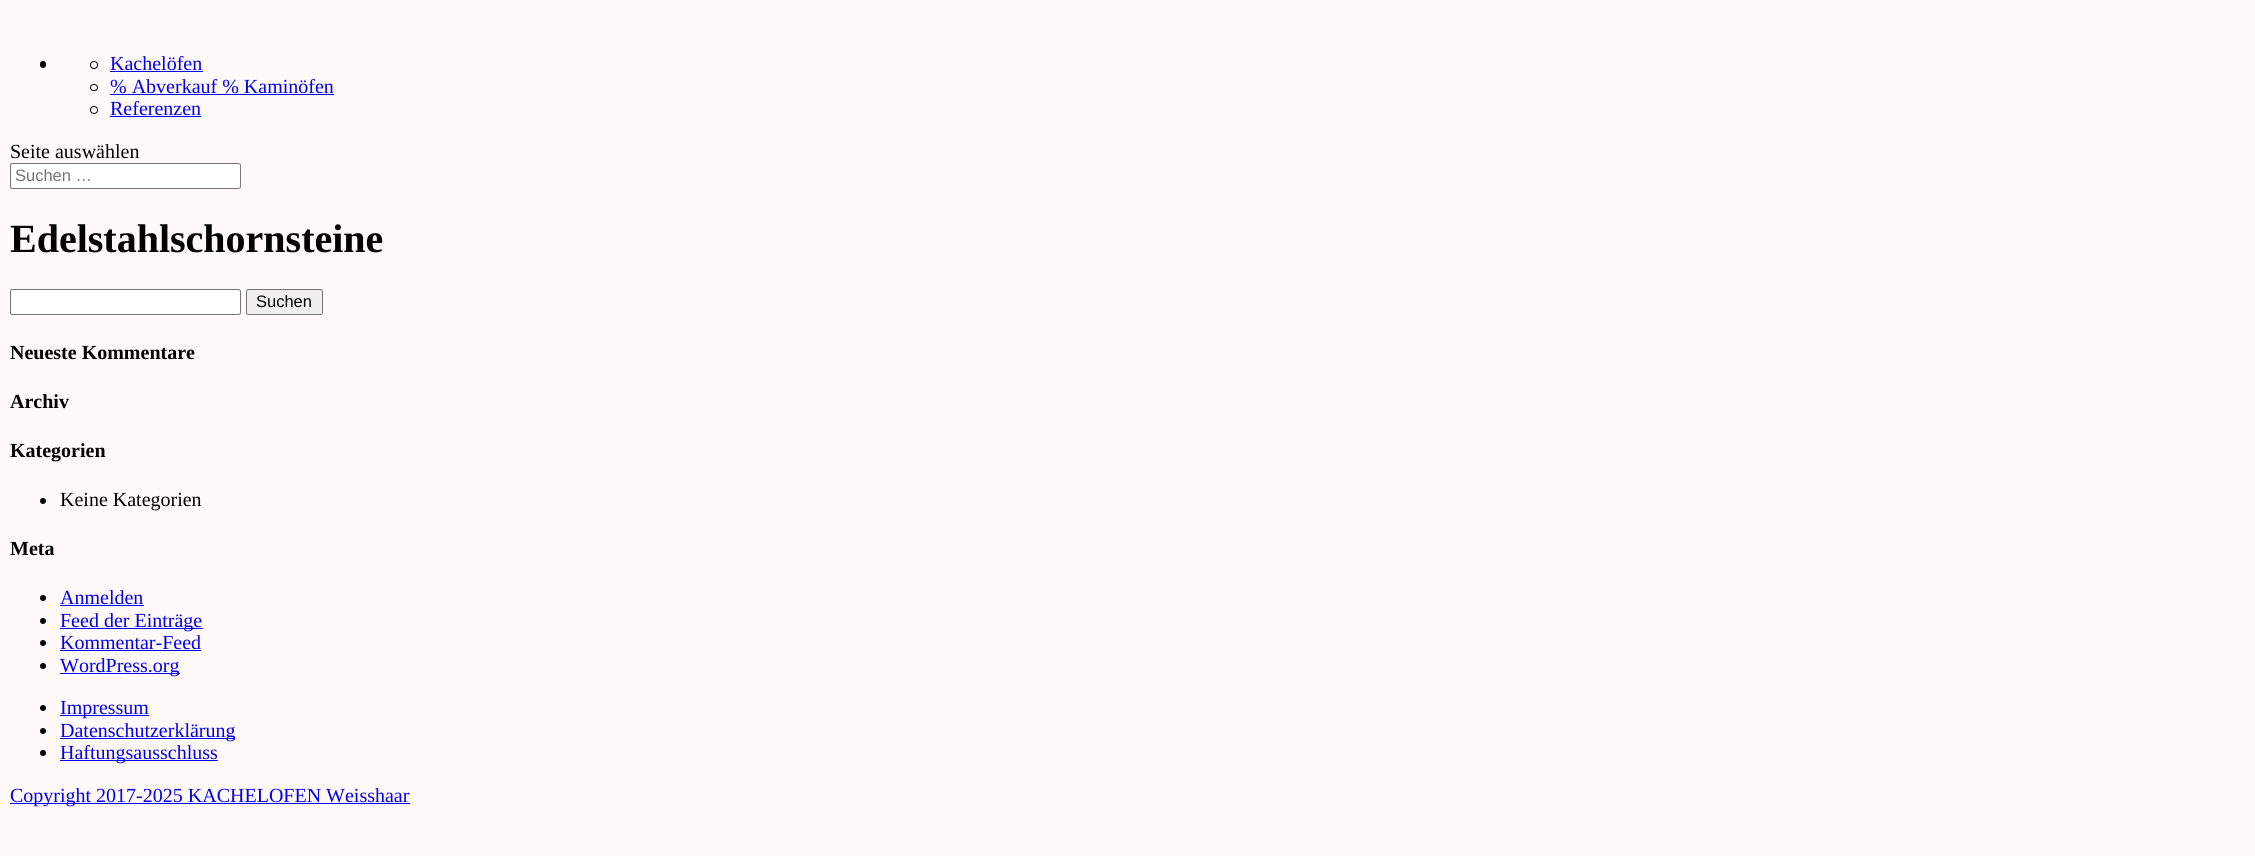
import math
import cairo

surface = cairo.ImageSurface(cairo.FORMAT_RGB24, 2255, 856)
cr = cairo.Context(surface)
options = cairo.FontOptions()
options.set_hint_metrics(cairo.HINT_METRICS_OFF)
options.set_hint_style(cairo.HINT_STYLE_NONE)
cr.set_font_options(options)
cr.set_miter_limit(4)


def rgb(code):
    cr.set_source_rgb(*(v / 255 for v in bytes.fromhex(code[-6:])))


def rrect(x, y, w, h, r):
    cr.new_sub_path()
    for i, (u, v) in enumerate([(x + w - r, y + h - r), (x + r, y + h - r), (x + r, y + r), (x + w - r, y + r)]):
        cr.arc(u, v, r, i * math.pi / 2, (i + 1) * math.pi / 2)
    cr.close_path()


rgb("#fff9f9")
cr.paint()
rgb("#000000")
rrect(40, 61, 6, 7, 3)
cr.fill()
cr.arc(94, 65, 3.5, 0, 2 * math.pi)
cr.set_line_width(1)
cr.stroke()
rgb("#0000ee")
cr.rectangle(110, 71, 93, 1)
cr.fill()
rrect(90.5, 84.5, 7, 6, 3)
rgb("#000000")
cr.stroke()
rgb("#0000ee")
cr.rectangle(110, 94, 224, 1)
cr.fill()
cr.arc(94, 110, 3.5, 0, 2 * math.pi)
rgb("#000000")
cr.stroke()
rgb("#0000ee")
cr.rectangle(110, 116, 91, 1)
cr.fill()
rgb("#ffffff")
rrect(10.5, 163.5, 230, 25, 2)
cr.fill_preserve()
rgb("#767676")
cr.stroke()
rgb("#ffffff")
rrect(10.5, 289.5, 230, 25, 2)
cr.fill_preserve()
rgb("#767676")
cr.stroke()
rgb("#efefef")
rrect(246.5, 289.5, 76, 25, 2)
cr.fill_preserve()
rgb("#767676")
cr.stroke()
rgb("#000000")
cr.arc(43, 501, 3, 0, 2 * math.pi)
cr.fill()
cr.arc(43, 598, 3, 0, 2 * math.pi)
cr.fill()
rgb("#0000ee")
cr.rectangle(60, 605, 84, 1)
cr.fill()
rgb("#000000")
cr.arc(43, 621, 3, 0, 2 * math.pi)
cr.fill()
rgb("#0000ee")
cr.rectangle(60, 628, 143, 1)
cr.fill()
rgb("#000000")
cr.arc(43, 643, 3, 0, 2 * math.pi)
cr.fill()
rgb("#0000ee")
cr.rectangle(60, 650, 141, 1)
cr.fill()
rgb("#000000")
cr.arc(43, 666, 3, 0, 2 * math.pi)
cr.fill()
rgb("#0000ee")
cr.rectangle(60, 673, 120, 1)
cr.fill()
rgb("#000000")
cr.arc(43, 708, 3, 0, 2 * math.pi)
cr.fill()
rgb("#0000ee")
cr.rectangle(60, 715, 89, 1)
cr.fill()
rgb("#000000")
cr.arc(43, 731, 3, 0, 2 * math.pi)
cr.fill()
rgb("#0000ee")
cr.rectangle(60, 738, 175, 1)
cr.fill()
rgb("#000000")
cr.arc(43, 753, 3, 0, 2 * math.pi)
cr.fill()
rgb("#0000ee")
cr.rectangle(60, 760, 158, 1)
cr.fill()
cr.rectangle(10, 803, 400, 1)
cr.fill()
cr.select_font_face("Liberation Serif")
cr.set_font_size(20)
for x, y, s in [
    (110, 70, "Kachelöfen"),
    (110, 93, "% Abverkauf % Kaminöfen"),
    (110, 115, "Referenzen"),
]:
    cr.move_to(x, y)
    cr.show_text(s)
rgb("#000000")
cr.move_to(10, 158)
cr.show_text("Seite auswählen")
cr.select_font_face("Liberation Sans")
cr.set_font_size(16.5)
rgb("#757575")
cr.move_to(15, 181)
cr.show_text("Suchen …")
cr.select_font_face("Liberation Serif", cairo.FONT_SLANT_NORMAL, cairo.FONT_WEIGHT_BOLD)
cr.set_font_size(40)
rgb("#000000")
cr.move_to(10, 252)
cr.show_text("Edelstahlschornsteine")
cr.select_font_face("Liberation Sans")
cr.set_font_size(16.5)
cr.move_to(256, 307)
cr.show_text("Suchen")
cr.select_font_face("Liberation Serif", cairo.FONT_SLANT_NORMAL, cairo.FONT_WEIGHT_BOLD)
cr.set_font_size(20)
for x, y, s in [
    (10, 359, "Neueste Kommentare"),
    (10, 408, "Archiv"),
    (10, 457, "Kategorien"),
]:
    cr.move_to(x, y)
    cr.show_text(s)
cr.select_font_face("Liberation Serif")
cr.move_to(60, 506)
cr.show_text("Keine Kategorien")
cr.select_font_face("Liberation Serif", cairo.FONT_SLANT_NORMAL, cairo.FONT_WEIGHT_BOLD)
cr.move_to(10, 555)
cr.show_text("Meta")
cr.select_font_face("Liberation Serif")
rgb("#0000ee")
for x, y, s in [
    (60, 604, "Anmelden"),
    (60, 627, "Feed der Einträge"),
    (60, 649, "Kommentar-Feed"),
    (60, 672, "WordPress.org"),
    (60, 714, "Impressum"),
    (60, 737, "Datenschutzerklärung"),
    (60, 759, "Haftungsausschluss"),
    (10, 802, "Copyright 2017-2025 KACHELOFEN Weisshaar"),
]:
    cr.move_to(x, y)
    cr.show_text(s)
surface.write_to_png("page.png")
